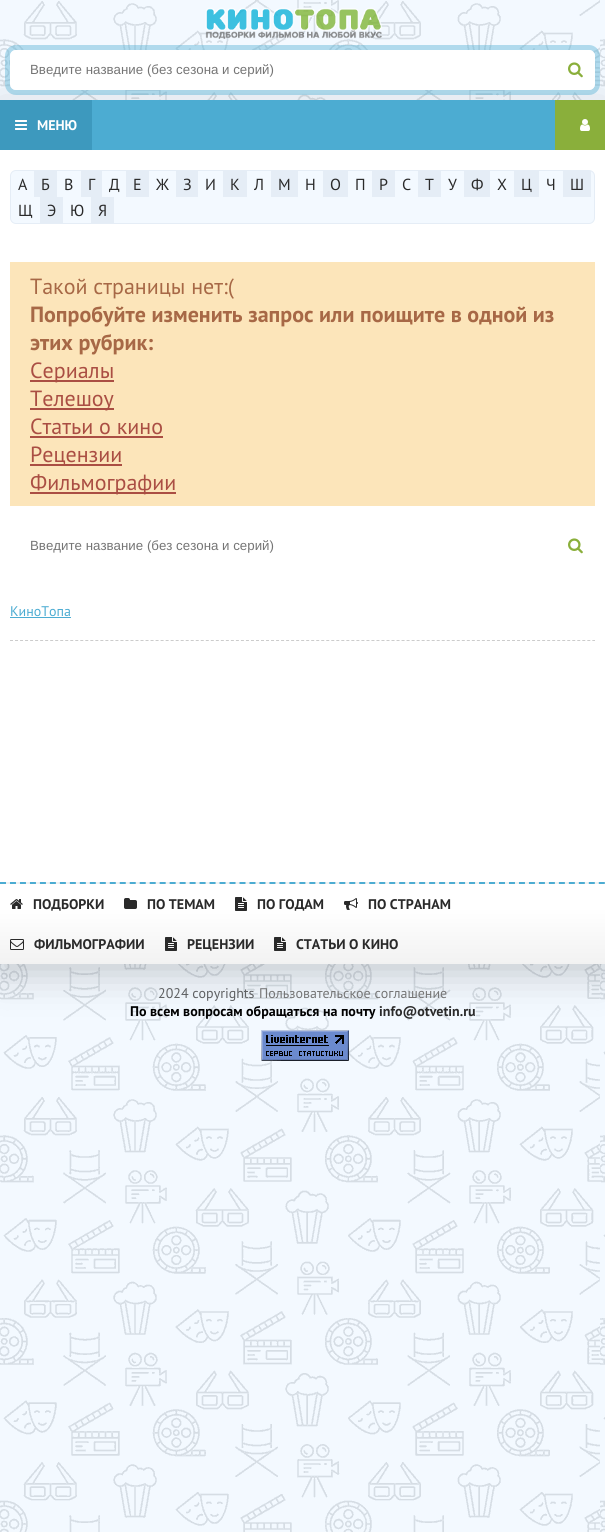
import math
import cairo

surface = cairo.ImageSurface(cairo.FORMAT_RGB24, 605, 1532)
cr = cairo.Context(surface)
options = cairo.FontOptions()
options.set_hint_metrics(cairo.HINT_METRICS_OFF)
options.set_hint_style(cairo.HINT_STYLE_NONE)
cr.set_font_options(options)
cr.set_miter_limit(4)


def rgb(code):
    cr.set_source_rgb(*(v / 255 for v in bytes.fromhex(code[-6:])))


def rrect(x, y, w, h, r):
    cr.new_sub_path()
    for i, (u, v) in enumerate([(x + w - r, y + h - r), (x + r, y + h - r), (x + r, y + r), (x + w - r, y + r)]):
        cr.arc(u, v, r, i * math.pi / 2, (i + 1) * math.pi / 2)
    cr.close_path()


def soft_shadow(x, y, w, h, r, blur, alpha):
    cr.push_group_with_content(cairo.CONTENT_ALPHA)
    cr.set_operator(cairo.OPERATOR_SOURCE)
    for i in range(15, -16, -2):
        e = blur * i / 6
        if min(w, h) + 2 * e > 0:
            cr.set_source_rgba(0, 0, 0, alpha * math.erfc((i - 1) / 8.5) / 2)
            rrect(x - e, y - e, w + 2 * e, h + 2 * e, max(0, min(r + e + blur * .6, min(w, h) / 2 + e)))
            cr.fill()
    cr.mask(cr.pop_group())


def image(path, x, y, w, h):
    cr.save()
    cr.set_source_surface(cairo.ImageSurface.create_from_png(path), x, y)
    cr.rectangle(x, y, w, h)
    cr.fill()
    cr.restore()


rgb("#ffffff")
cr.paint()
image("img/1.png", 0, 0, 605, 1532)
image("img/2.png", 205, 7, 177, 32)
image("img/12.png", 261, 1030, 88, 31)
rgb("#000000")
soft_shadow(0, 110, 605, 864, 0, 20, 0.2)
rrect(7.5, 47.5, 590, 45, 8.5)
cr.set_source_rgba(0.298, 0.675, 0.824, 0.4)
cr.set_line_width(5)
cr.stroke()
rgb("#ffffff")
rrect(10, 50, 585, 40, 6)
cr.fill()
image("img/3.png", 568, 62, 15, 16)
for x, y, w, h, color in [
    (0, 150, 605, 732, "#ffffff"),
    (92, 100, 463, 50, "#4cacd2"),
    (0, 100, 92, 50, "#3d99be"),
]:
    rgb(color)
    cr.rectangle(x, y, w, h)
    cr.fill()
image("img/4.png", 15, 120, 12, 10)
rgb("#8aaf3b")
cr.rectangle(555, 100, 50, 50)
cr.fill()
image("img/5.png", 580, 119, 10, 12)
rgb("#f3f9ff")
rrect(10.5, 170.5, 584, 53, 5.5)
cr.fill_preserve()
rgb("#e5edf6")
cr.set_line_width(1)
cr.stroke()
for x, y, w, h, color in [
    (34, 171, 23, 26, "#e5edf6"),
    (81, 171, 21, 26, "#e5edf6"),
    (126, 171, 23, 26, "#e5edf6"),
    (176, 171, 22, 26, "#e5edf6"),
    (223, 171, 24, 26, "#e5edf6"),
    (271, 171, 27, 26, "#e5edf6"),
    (323, 171, 25, 26, "#e5edf6"),
    (372, 171, 23, 26, "#e5edf6"),
    (418, 171, 23, 26, "#e5edf6"),
    (464, 171, 26, 26, "#e5edf6"),
    (514, 171, 25, 26, "#e5edf6"),
    (563, 171, 28, 26, "#e5edf6"),
    (40, 197, 23, 26, "#e5edf6"),
    (91, 197, 23, 26, "#e5edf6"),
    (10, 262, 585, 244, "#fce5ba"),
    (30, 380, 84, 2, "#aa4e43"),
    (30, 408, 84, 2, "#aa4e43"),
    (30, 436, 133, 2, "#aa4e43"),
    (30, 464, 92, 2, "#aa4e43"),
    (30, 492, 146, 2, "#aa4e43"),
]:
    rgb(color)
    cr.rectangle(x, y, w, h)
    cr.fill()
image("img/3.png", 568, 538, 15, 16)
cr.new_path()
cr.move_to(10, 640.5)
cr.line_to(595, 640.5)
rgb("#cccccc")
cr.set_dash([3, 2.02])
cr.stroke()
rgb("#4cacd2")
cr.rectangle(10, 617, 61, 1)
cr.fill()
gradient = cairo.LinearGradient(303, 804, 303, 884)
gradient.add_color_stop_rgba(0, 1, 1, 1, 1)
gradient.add_color_stop_rgba(0.3, 1, 1, 1, 1)
gradient.add_color_stop_rgba(1, 0.949, 0.949, 0.949, 1)
cr.set_source(gradient)
cr.rectangle(0, 882, 605, 2)
cr.fill()
gradient = cairo.LinearGradient(303, 884, 303, 964)
gradient.add_color_stop_rgba(0, 1, 1, 1, 1)
gradient.add_color_stop_rgba(0.3, 1, 1, 1, 1)
gradient.add_color_stop_rgba(1, 0.949, 0.949, 0.949, 1)
cr.set_source(gradient)
cr.rectangle(0, 884, 605, 80)
cr.fill()
cr.new_path()
cr.move_to(0, 883)
cr.line_to(605, 883)
rgb("#4cacd2")
cr.set_line_width(2)
cr.set_dash([6, 3.98])
cr.stroke()
image("img/6.png", 10, 899, 13, 10)
image("img/7.png", 124, 898, 13, 11)
image("img/8.png", 235, 897, 12, 14)
image("img/9.png", 344, 898, 14, 12)
image("img/10.png", 10, 939, 14, 11)
image("img/11.png", 165, 937, 12, 14)
image("img/11.png", 274, 937, 12, 14)
cr.select_font_face("Liberation Sans")
cr.set_font_size(13.3)
rgb("#757575")
cr.move_to(30, 74)
cr.show_text("Введите название (без сезона и серий)")
cr.select_font_face("PT Sans", cairo.FONT_SLANT_NORMAL, cairo.FONT_WEIGHT_BOLD)
cr.set_font_size(14)
rgb("#ffffff")
cr.move_to(37, 130)
cr.show_text("МЕНЮ")
cr.select_font_face("PT Sans")
cr.set_font_size(16)
rgb("#2a2a2a")
for x, y, s in [
    (18, 190, "А"),
    (41, 190, "Б"),
    (64, 190, "В"),
    (88, 190, "Г"),
    (109, 190, "Д"),
    (133, 190, "Е"),
    (156, 190, "Ж"),
    (183, 190, "З"),
    (205, 190, "И"),
    (230, 190, "К"),
    (254, 190, "Л"),
    (278, 190, "М"),
    (305, 190, "Н"),
    (330, 190, "О"),
    (355, 190, "П"),
    (379, 190, "Р"),
    (402, 190, "С"),
    (425, 190, "Т"),
    (448, 190, "У"),
    (471, 190, "Ф"),
    (497, 190, "Х"),
    (521, 190, "Ц"),
    (546, 190, "Ч"),
    (570, 190, "Ш"),
    (18, 216, "Щ"),
    (47, 216, "Э"),
    (70, 216, "Ю"),
    (98, 216, "Я"),
]:
    cr.move_to(x, y)
    cr.show_text(s)
cr.set_font_size(22)
rgb("#a76846")
cr.move_to(30, 294)
cr.show_text("Такой страницы нет:(")
cr.select_font_face("PT Sans", cairo.FONT_SLANT_NORMAL, cairo.FONT_WEIGHT_BOLD)
cr.move_to(30, 322)
cr.show_text("Попробуйте изменить запрос или поищите в одной из")
cr.move_to(30, 350)
cr.show_text("этих рубрик:")
cr.select_font_face("PT Sans")
rgb("#aa4e43")
for x, y, s in [
    (30, 378, "Сериалы"),
    (30, 406, "Телешоу"),
    (30, 434, "Статьи о кино"),
    (30, 462, "Рецензии"),
    (30, 490, "Фильмографии"),
]:
    cr.move_to(x, y)
    cr.show_text(s)
cr.select_font_face("Liberation Sans")
cr.set_font_size(13.3)
rgb("#757575")
cr.move_to(30, 550)
cr.show_text("Введите название (без сезона и серий)")
cr.select_font_face("PT Sans")
cr.set_font_size(14)
rgb("#4cacd2")
cr.move_to(10, 616)
cr.show_text("КиноТопа")
cr.select_font_face("PT Sans", cairo.FONT_SLANT_NORMAL, cairo.FONT_WEIGHT_BOLD)
rgb("#2a2a2a")
for x, y, s in [
    (33, 909, "ПОДБОРКИ"),
    (147, 909, "ПО ТЕМАМ"),
    (257, 909, "ПО ГОДАМ"),
    (368, 909, "ПО СТРАНАМ"),
    (34, 949, "ФИЛЬМОГРАФИИ"),
    (187, 949, "РЕЦЕНЗИИ"),
    (296, 949, "СТАТЬИ О КИНО"),
]:
    cr.move_to(x, y)
    cr.show_text(s)
cr.select_font_face("PT Sans")
rgb("#5e6062")
cr.move_to(158, 998)
cr.show_text("2024 copyrights")
rgb("#757575")
cr.move_to(259, 998)
cr.show_text("Пользовательское соглашение")
cr.select_font_face("PT Sans", cairo.FONT_SLANT_NORMAL, cairo.FONT_WEIGHT_BOLD)
rgb("#000000")
cr.move_to(130, 1016)
cr.show_text("По всем вопросам обращаться на почту")
rgb("#2a2a2a")
cr.move_to(379, 1016)
cr.show_text("info@otvetin.ru")
surface.write_to_png("page.png")
